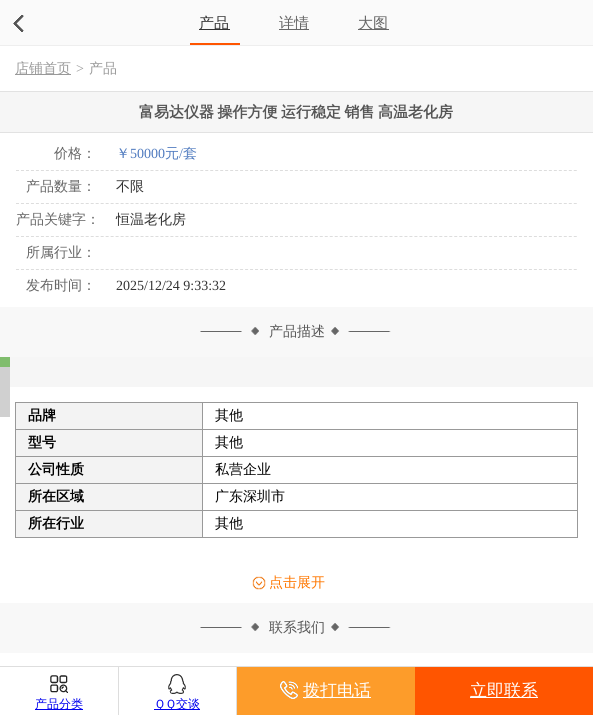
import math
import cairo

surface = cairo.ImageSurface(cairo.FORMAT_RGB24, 593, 715)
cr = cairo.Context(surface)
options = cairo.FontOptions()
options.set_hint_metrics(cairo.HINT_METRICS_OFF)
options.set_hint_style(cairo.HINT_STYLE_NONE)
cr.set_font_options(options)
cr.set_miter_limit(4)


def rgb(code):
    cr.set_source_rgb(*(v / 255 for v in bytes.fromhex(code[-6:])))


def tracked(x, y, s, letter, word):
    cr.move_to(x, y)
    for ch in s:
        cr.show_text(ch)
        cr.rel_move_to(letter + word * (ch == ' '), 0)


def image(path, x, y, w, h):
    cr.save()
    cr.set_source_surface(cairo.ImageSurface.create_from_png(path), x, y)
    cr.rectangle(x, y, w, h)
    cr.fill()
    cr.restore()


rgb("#ffffff")
cr.paint()
rgb("#fafafa")
cr.rectangle(0, 0, 593, 45)
cr.fill()
rgb("#eeeeee")
cr.rectangle(0, 45, 593, 1)
cr.fill()
image("img/1.png", 13, 15, 11, 17)
for x, y, w, h, color in [
    (190, 43, 50, 2, "#ff5500"),
    (199, 29, 31, 1, "#333333"),
    (279, 29, 30, 1, "#666666"),
    (358, 29, 31, 1, "#666666"),
    (15, 74, 56, 1, "#999999"),
    (0, 92, 593, 40, "#f6f6f6"),
    (0, 91, 593, 1, "#e2e2e2"),
    (0, 132, 593, 1, "#e2e2e2"),
]:
    rgb(color)
    cr.rectangle(x, y, w, h)
    cr.fill()
cr.new_path()
cr.move_to(16, 170.5)
cr.line_to(577, 170.5)
rgb("#dddddd")
cr.set_line_width(1)
cr.set_dash([3, 1.98])
cr.stroke()
cr.new_path()
cr.move_to(16, 203.5)
cr.line_to(577, 203.5)
cr.stroke()
cr.new_path()
cr.move_to(16, 236.5)
cr.line_to(577, 236.5)
cr.stroke()
cr.new_path()
cr.move_to(16, 269.5)
cr.line_to(577, 269.5)
cr.stroke()
rgb("#f8f8f8")
cr.rectangle(0, 307, 593, 50)
cr.fill()
image("img/2.png", 200, 327, 59, 8)
image("img/3.png", 331, 327, 60, 8)
for x, y, w, h, color in [
    (10, 357, 583, 30, "#f6f6f6"),
    (0, 357, 10, 10, "#80bd6d"),
    (0, 367, 10, 50, "#d0d0d0"),
    (16, 403, 186, 26, "#f3f3f3"),
    (202, 402, 376, 1, "#999999"),
    (202, 429, 376, 1, "#999999"),
    (202, 456, 376, 1, "#999999"),
    (202, 483, 376, 1, "#999999"),
    (202, 510, 376, 1, "#999999"),
    (577, 510, 1, 28, "#999999"),
    (202, 537, 376, 1, "#999999"),
    (202, 510, 1, 28, "#999999"),
    (15, 510, 188, 1, "#999999"),
    (202, 483, 1, 28, "#999999"),
    (15, 483, 188, 1, "#999999"),
    (202, 456, 1, 28, "#999999"),
    (15, 456, 188, 1, "#999999"),
    (202, 429, 1, 28, "#999999"),
    (15, 429, 188, 1, "#999999"),
    (202, 402, 1, 28, "#999999"),
    (15, 402, 188, 1, "#999999"),
    (15, 537, 188, 1, "#999999"),
    (15, 510, 1, 28, "#999999"),
    (15, 483, 1, 28, "#999999"),
    (15, 456, 1, 28, "#999999"),
    (15, 429, 1, 28, "#999999"),
    (15, 402, 1, 28, "#999999"),
    (577, 483, 1, 28, "#999999"),
    (577, 456, 1, 28, "#999999"),
    (577, 429, 1, 28, "#999999"),
    (577, 402, 1, 28, "#999999"),
    (16, 430, 186, 26, "#f3f3f3"),
    (16, 457, 186, 26, "#f3f3f3"),
    (16, 484, 186, 26, "#f3f3f3"),
    (16, 511, 186, 26, "#f3f3f3"),
]:
    rgb(color)
    cr.rectangle(x, y, w, h)
    cr.fill()
image("img/4.png", 252, 576, 14, 14)
rgb("#f8f8f8")
cr.rectangle(0, 603, 593, 50)
cr.fill()
image("img/2.png", 200, 623, 59, 8)
image("img/3.png", 331, 623, 60, 8)
rgb("#dedede")
cr.rectangle(0, 666, 593, 1)
cr.fill()
rgb("#fd9c2a")
cr.rectangle(237, 667, 178, 48)
cr.fill()
image("img/5.png", 280, 681, 18, 18)
for x, y, w, h, color in [
    (303, 697, 68, 1, "#ffffff"),
    (415, 667, 178, 48, "#ff5500"),
    (470, 697, 68, 1, "#ffffff"),
    (118, 667, 1, 48, "#dddddd"),
]:
    rgb(color)
    cr.rectangle(x, y, w, h)
    cr.fill()
image("img/6.png", 50, 675, 18, 18)
rgb("#0000ee")
cr.rectangle(35, 709, 48, 1)
cr.fill()
rgb("#dddddd")
cr.rectangle(236, 667, 1, 48)
cr.fill()
image("img/7.png", 168, 674, 18, 20)
rgb("#0000ee")
cr.rectangle(154, 709, 46, 1)
cr.fill()
cr.select_font_face("WenQuanYi Zen Hei Medium")
cr.set_font_size(15)
rgb("#333333")
cr.move_to(199, 28)
cr.show_text("产品")
rgb("#666666")
cr.move_to(279, 28)
cr.show_text("详情")
cr.move_to(358, 28)
cr.show_text("大图")
cr.set_font_size(14)
rgb("#999999")
cr.move_to(15, 73)
cr.show_text("店铺首页")
cr.select_font_face("Liberation Serif")
cr.move_to(76, 73)
cr.show_text(">")
cr.select_font_face("WenQuanYi Zen Hei Medium")
cr.move_to(89, 73)
cr.show_text("产品")
cr.select_font_face("WenQuanYi Zen Hei", cairo.FONT_SLANT_NORMAL, cairo.FONT_WEIGHT_BOLD)
cr.set_font_size(15)
rgb("#555555")
tracked(139, 117, "富易达仪器 操作方便 运行稳定 销售 高温老化房", 0, -1)
cr.select_font_face("WenQuanYi Zen Hei Medium")
cr.set_font_size(14)
rgb("#666666")
cr.move_to(54, 158)
cr.show_text("价格：")
rgb("#507bbf")
cr.move_to(116, 158)
cr.show_text("￥")
cr.select_font_face("Liberation Serif")
cr.move_to(130, 158)
cr.show_text("50000")
cr.select_font_face("WenQuanYi Zen Hei Medium")
cr.move_to(165, 158)
cr.show_text("元")
cr.select_font_face("Liberation Serif")
cr.move_to(179, 158)
cr.show_text("/")
cr.select_font_face("WenQuanYi Zen Hei Medium")
cr.move_to(183, 158)
cr.show_text("套")
rgb("#666666")
cr.move_to(26, 191)
cr.show_text("产品数量：")
rgb("#333333")
cr.move_to(116, 191)
cr.show_text("不限")
rgb("#666666")
cr.move_to(16, 224)
cr.show_text("产品关键字：")
rgb("#333333")
cr.move_to(116, 224)
cr.show_text("恒温老化房")
rgb("#666666")
cr.move_to(26, 257)
cr.show_text("所属行业：")
cr.move_to(26, 290)
cr.show_text("发布时间：")
cr.select_font_face("Liberation Serif")
rgb("#333333")
cr.move_to(116, 290)
cr.show_text("2025/12/24 9:33:32")
cr.select_font_face("WenQuanYi Zen Hei Medium")
rgb("#555555")
cr.move_to(269, 336)
cr.show_text("产品描述")
cr.select_font_face("WenQuanYi Zen Hei", cairo.FONT_SLANT_NORMAL, cairo.FONT_WEIGHT_BOLD)
rgb("#000000")
cr.move_to(28, 420)
cr.show_text("品牌")
cr.select_font_face("WenQuanYi Zen Hei Medium")
cr.move_to(215, 420)
cr.show_text("其他")
cr.select_font_face("WenQuanYi Zen Hei", cairo.FONT_SLANT_NORMAL, cairo.FONT_WEIGHT_BOLD)
cr.move_to(28, 447)
cr.show_text("型号")
cr.select_font_face("WenQuanYi Zen Hei Medium")
cr.move_to(215, 447)
cr.show_text("其他")
cr.select_font_face("WenQuanYi Zen Hei", cairo.FONT_SLANT_NORMAL, cairo.FONT_WEIGHT_BOLD)
cr.move_to(28, 474)
cr.show_text("公司性质")
cr.select_font_face("WenQuanYi Zen Hei Medium")
cr.move_to(215, 474)
cr.show_text("私营企业")
cr.select_font_face("WenQuanYi Zen Hei", cairo.FONT_SLANT_NORMAL, cairo.FONT_WEIGHT_BOLD)
cr.move_to(28, 501)
cr.show_text("所在区域")
cr.select_font_face("WenQuanYi Zen Hei Medium")
cr.move_to(215, 501)
cr.show_text("广东深圳市")
cr.select_font_face("WenQuanYi Zen Hei", cairo.FONT_SLANT_NORMAL, cairo.FONT_WEIGHT_BOLD)
cr.move_to(28, 528)
cr.show_text("所在行业")
cr.select_font_face("WenQuanYi Zen Hei Medium")
cr.move_to(215, 528)
cr.show_text("其他")
rgb("#ff7700")
cr.move_to(269, 587)
cr.show_text("点击展开")
rgb("#555555")
cr.move_to(269, 632)
cr.show_text("联系我们")
cr.set_font_size(17)
rgb("#ffffff")
cr.move_to(303, 696)
cr.show_text("拨打电话")
cr.move_to(470, 696)
cr.show_text("立即联系")
cr.set_font_size(12)
rgb("#0000ee")
cr.move_to(35, 708)
cr.show_text("产品分类")
cr.move_to(154, 708)
cr.show_text("ＱＱ交谈")
surface.write_to_png("page.png")
